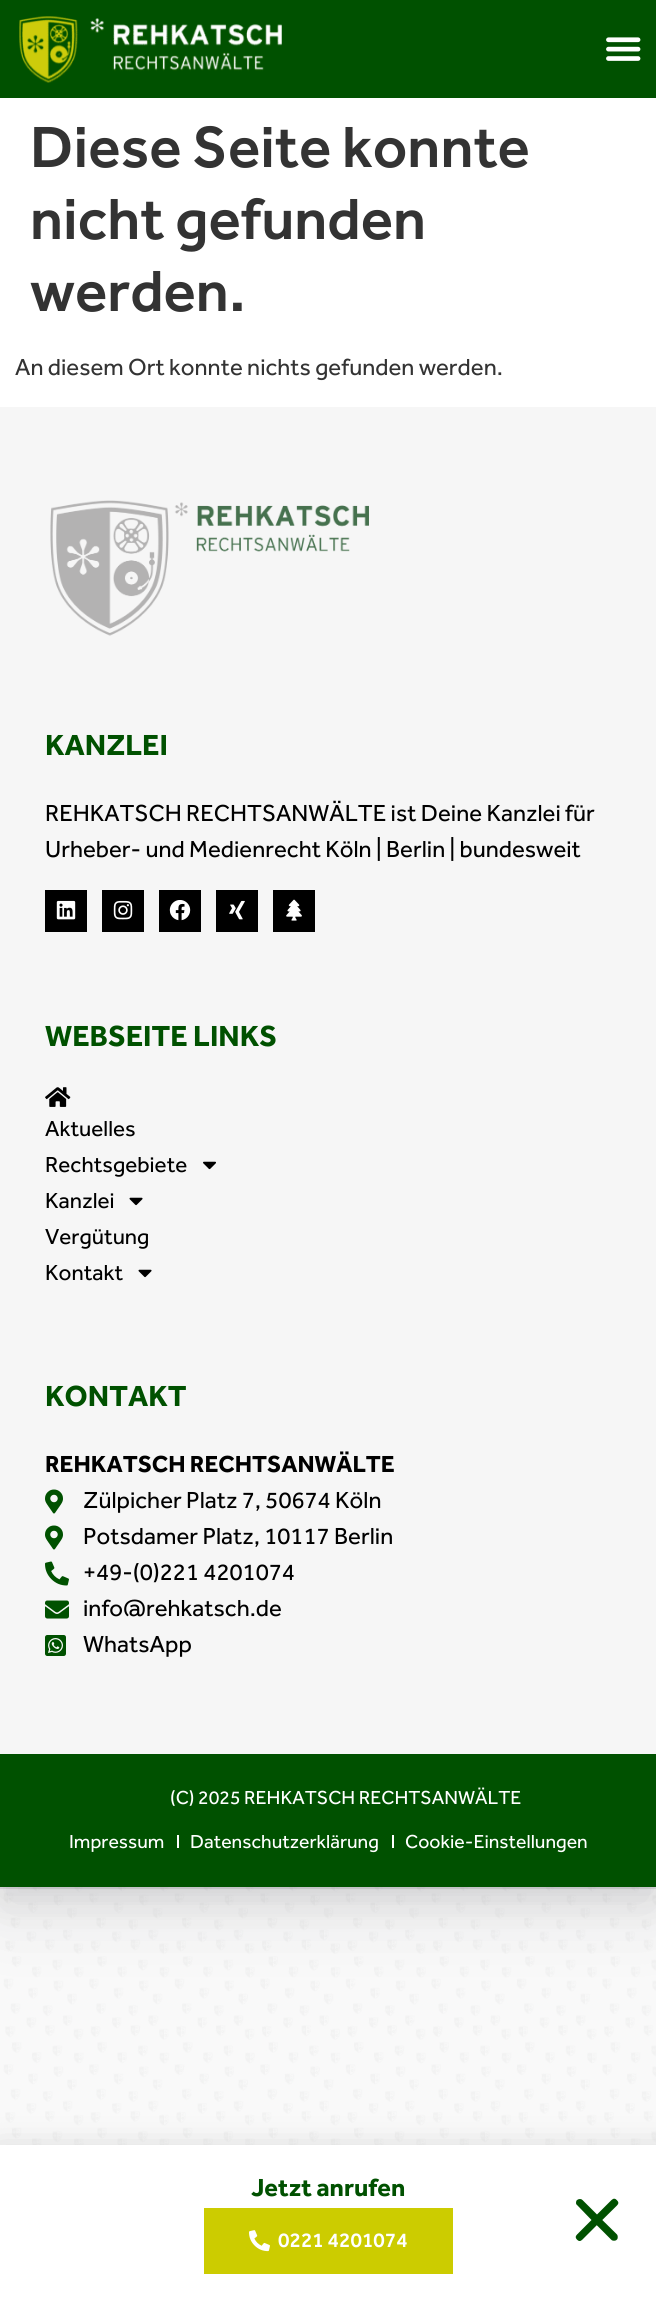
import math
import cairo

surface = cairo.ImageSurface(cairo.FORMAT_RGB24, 656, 2304)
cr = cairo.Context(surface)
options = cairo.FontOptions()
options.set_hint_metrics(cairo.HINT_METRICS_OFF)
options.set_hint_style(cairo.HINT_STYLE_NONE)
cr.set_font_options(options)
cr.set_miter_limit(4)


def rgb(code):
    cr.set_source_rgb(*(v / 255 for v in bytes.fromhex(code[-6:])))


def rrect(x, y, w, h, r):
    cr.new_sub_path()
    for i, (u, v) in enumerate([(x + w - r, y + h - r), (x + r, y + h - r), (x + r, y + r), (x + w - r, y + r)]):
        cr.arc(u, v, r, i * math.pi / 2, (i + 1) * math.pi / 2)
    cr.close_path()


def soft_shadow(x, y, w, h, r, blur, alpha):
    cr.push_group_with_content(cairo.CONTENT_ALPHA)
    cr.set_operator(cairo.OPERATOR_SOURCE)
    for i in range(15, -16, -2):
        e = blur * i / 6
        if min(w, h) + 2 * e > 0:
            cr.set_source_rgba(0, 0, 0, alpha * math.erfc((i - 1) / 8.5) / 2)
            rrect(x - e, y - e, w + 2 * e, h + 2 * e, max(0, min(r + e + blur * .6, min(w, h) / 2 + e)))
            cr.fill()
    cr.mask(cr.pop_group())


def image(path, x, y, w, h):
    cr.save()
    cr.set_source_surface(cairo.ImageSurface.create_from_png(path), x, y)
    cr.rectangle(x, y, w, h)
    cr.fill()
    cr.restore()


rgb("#ffffff")
cr.paint()
image("img/1.png", 0, 1887, 656, 258)
rgb("#11111a")
soft_shadow(0, 24, 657, 1887, 0, 36, 0.1)
soft_shadow(0, 12, 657, 1887, 0, 18, 0.1)
cr.set_source_rgba(0.067, 0.067, 0.102, 0.1)
cr.rectangle(0, 1887, 656, 2)
cr.fill()
rgb("#ffffff")
cr.rectangle(0, 98, 656, 309)
cr.fill()
rgb("#005100")
cr.rectangle(0, 0, 656, 98)
cr.fill()
image("img/2.png", 19, 16, 263, 67)
image("img/3.png", 606, 37, 35, 24)
rgb("#f6f6f6")
cr.rectangle(0, 407, 656, 1347)
cr.fill()
image("img/4.png", 50, 500, 319, 136)
rgb("#000000")
cr.rectangle(45, 890, 42, 42)
cr.fill()
image("img/5.png", 56, 900, 20, 20)
cr.rectangle(102, 890, 42, 42)
cr.fill()
image("img/6.png", 113, 900, 20, 20)
cr.rectangle(159, 890, 42, 42)
cr.fill()
image("img/7.png", 169, 900, 22, 21)
cr.rectangle(216, 890, 42, 42)
cr.fill()
image("img/8.png", 229, 900, 16, 20)
cr.rectangle(273, 890, 42, 42)
cr.fill()
image("img/9.png", 286, 899, 16, 22)
image("img/10.png", 45, 1087, 26, 20)
image("img/11.png", 203, 1161, 13, 9)
image("img/12.png", 129, 1197, 14, 9)
image("img/12.png", 138, 1269, 14, 9)
image("img/13.png", 45, 1489, 18, 25)
image("img/13.png", 45, 1525, 18, 25)
image("img/14.png", 45, 1561, 24, 25)
image("img/15.png", 45, 1600, 24, 19)
image("img/16.png", 45, 1635, 21, 21)
for x, y, w, h, color in [
    (0, 1754, 656, 133, "#005100"),
    (177, 1835, 2, 13, "#ffffff"),
    (392, 1835, 2, 13, "#ffffff"),
]:
    rgb(color)
    cr.rectangle(x, y, w, h)
    cr.fill()
rgb("#000000")
soft_shadow(-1, 2153, 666, 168, 0, 17, 0.2)
rgb("#ffffff")
cr.rectangle(0, 2145, 656, 159)
cr.fill()
rgb("#cccc00")
cr.rectangle(204, 2208, 249, 66)
cr.fill()
image("img/17.png", 249, 2230, 21, 22)
image("img/18.png", 575, 2198, 44, 43)
cr.select_font_face("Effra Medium")
cr.set_font_size(60)
rgb("#333333")
for x, y, s in [
    (30, 167, "Diese Seite konnte"),
    (30, 239, "nicht gefunden"),
    (30, 311, "werden."),
]:
    cr.move_to(x, y)
    cr.show_text(s)
cr.select_font_face("Effra")
cr.set_font_size(24)
cr.move_to(15, 375)
cr.show_text("An diesem Ort konnte nichts gefunden werden.")
cr.select_font_face("Effra", cairo.FONT_SLANT_NORMAL, cairo.FONT_WEIGHT_BOLD)
cr.set_font_size(30)
rgb("#005100")
cr.move_to(45, 755)
cr.show_text("KANZLEI")
cr.select_font_face("Effra")
cr.set_font_size(24)
rgb("#000000")
cr.move_to(45, 821)
cr.show_text("REHKATSCH RECHTSANWÄLTE ist Deine Kanzlei für")
cr.move_to(45, 857)
cr.show_text("Urheber- und Medienrecht Köln | Berlin | bundesweit")
cr.select_font_face("Effra", cairo.FONT_SLANT_NORMAL, cairo.FONT_WEIGHT_BOLD)
cr.set_font_size(30)
rgb("#005100")
cr.move_to(45, 1046)
cr.show_text("WEBSEITE LINKS")
cr.select_font_face("Effra")
cr.set_font_size(22.5)
rgb("#000000")
for x, y, s in [
    (45, 1136, "Aktuelles"),
    (45, 1172, "Rechtsgebiete"),
    (45, 1208, "Kanzlei"),
    (45, 1244, "Vergütung"),
    (45, 1280, "Kontakt"),
]:
    cr.move_to(x, y)
    cr.show_text(s)
cr.select_font_face("Effra", cairo.FONT_SLANT_NORMAL, cairo.FONT_WEIGHT_BOLD)
cr.set_font_size(30)
rgb("#005100")
cr.move_to(45, 1406)
cr.show_text("KONTAKT")
cr.set_font_size(24)
rgb("#000000")
cr.move_to(45, 1472)
cr.show_text("REHKATSCH RECHTSANWÄLTE")
cr.select_font_face("Effra")
for x, y, s in [
    (83, 1508, "Zülpicher Platz 7, 50674 Köln"),
    (83, 1544, "Potsdamer Platz, 10117 Berlin"),
    (83, 1580, "+49-(0)221 4201074"),
    (83, 1616, "info@rehkatsch.de"),
    (83, 1652, "WhatsApp"),
]:
    cr.move_to(x, y)
    cr.show_text(s)
cr.set_font_size(19.5)
rgb("#ffffff")
for x, y, s in [
    (170, 1804, "(C) 2025 REHKATSCH RECHTSANWÄLTE"),
    (69, 1848, "Impressum"),
    (190, 1848, "Datenschutzerklärung"),
    (405, 1848, "Cookie-Einstellungen"),
]:
    cr.move_to(x, y)
    cr.show_text(s)
cr.select_font_face("Effra", cairo.FONT_SLANT_NORMAL, cairo.FONT_WEIGHT_BOLD)
cr.set_font_size(25.5)
rgb("#005100")
cr.move_to(251, 2196)
cr.show_text("Jetzt anrufen")
cr.select_font_face("Effra Medium")
cr.set_font_size(21)
rgb("#ffffff")
cr.move_to(278, 2247)
cr.show_text("0221 4201074")
surface.write_to_png("page.png")
